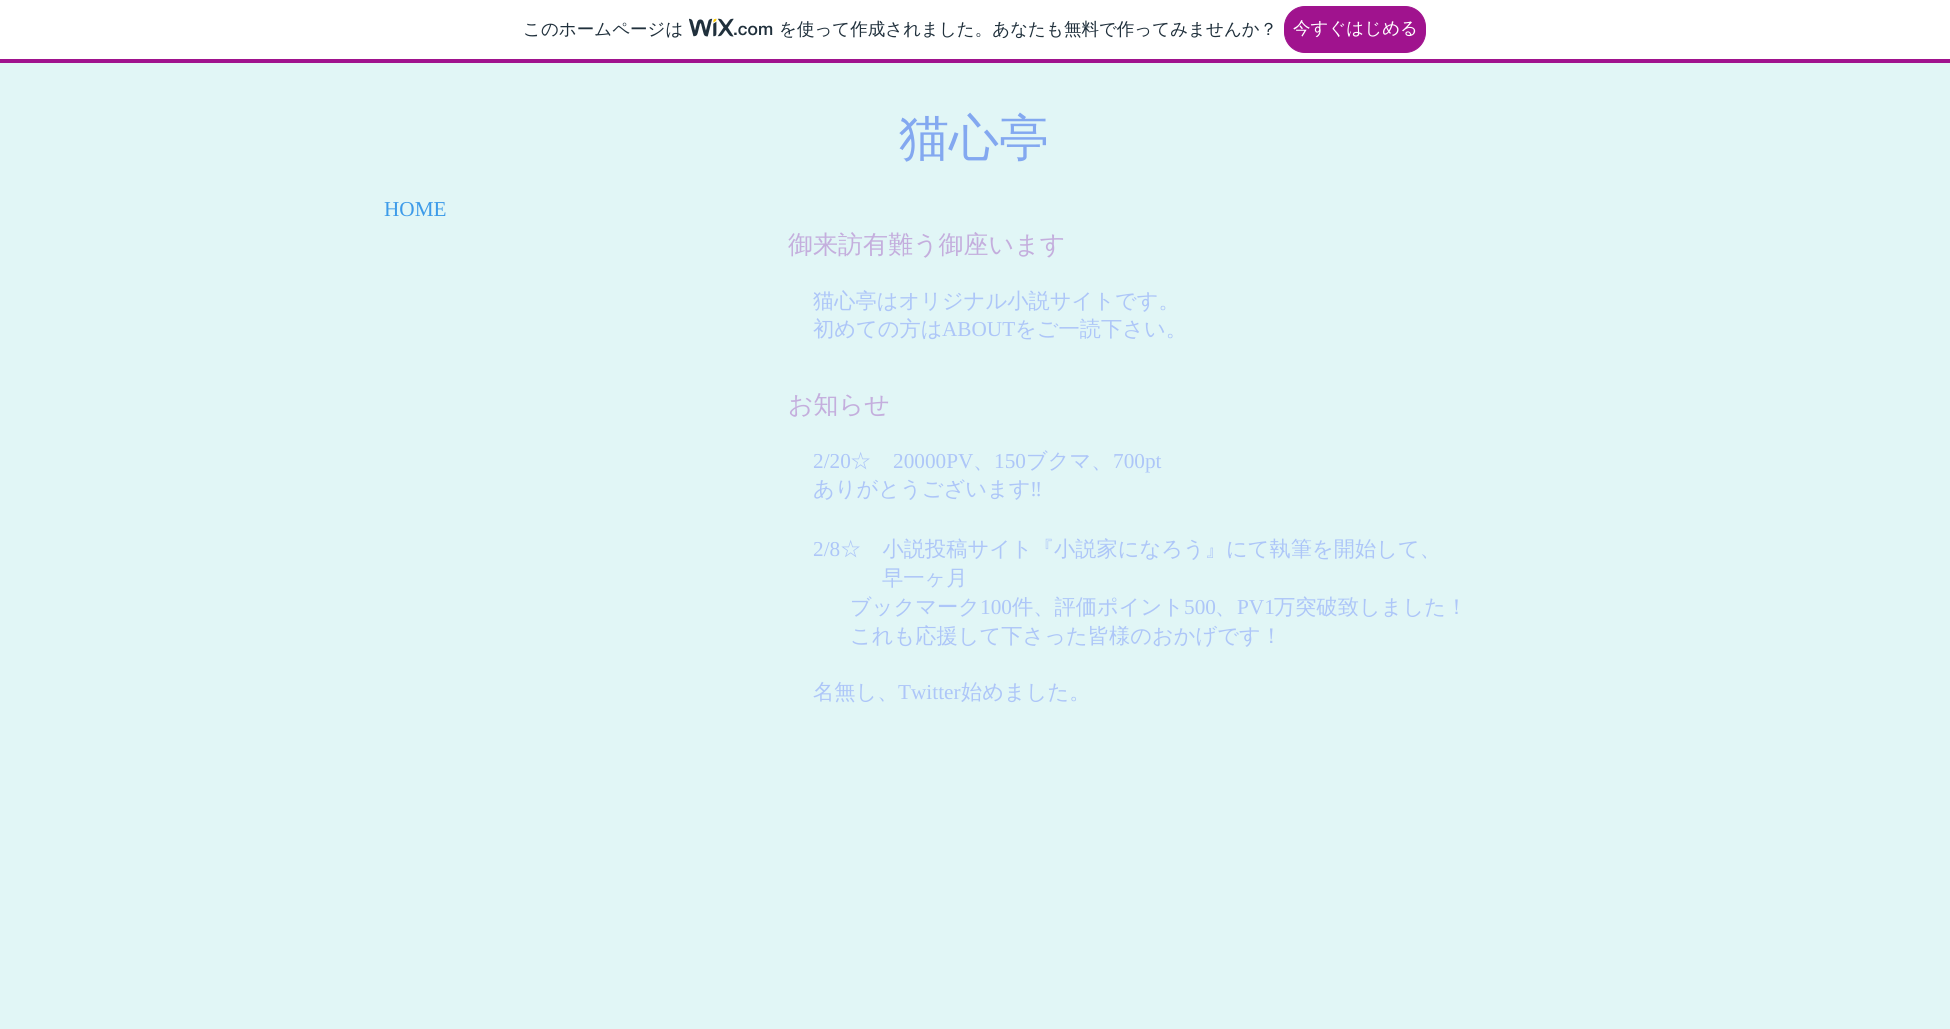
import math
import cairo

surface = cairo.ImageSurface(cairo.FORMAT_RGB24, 1950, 1029)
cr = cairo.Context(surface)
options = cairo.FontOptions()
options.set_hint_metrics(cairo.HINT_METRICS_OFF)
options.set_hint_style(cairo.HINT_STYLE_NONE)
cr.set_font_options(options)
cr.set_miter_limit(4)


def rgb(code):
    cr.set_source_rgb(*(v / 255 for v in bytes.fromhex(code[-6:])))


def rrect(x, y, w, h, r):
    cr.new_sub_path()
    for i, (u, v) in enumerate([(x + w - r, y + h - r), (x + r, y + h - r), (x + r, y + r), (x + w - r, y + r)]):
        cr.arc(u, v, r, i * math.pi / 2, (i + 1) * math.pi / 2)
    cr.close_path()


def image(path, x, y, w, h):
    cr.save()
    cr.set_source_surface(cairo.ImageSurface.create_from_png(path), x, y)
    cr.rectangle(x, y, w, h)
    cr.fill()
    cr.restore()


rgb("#ffffff")
cr.paint()
rgb("#a0138e")
cr.rectangle(0, 59, 1950, 4)
cr.fill()
image("img/1.png", 689, 18, 45, 19)
rrect(1284.5, 6.5, 141, 46, 20.5)
cr.fill_preserve()
cr.set_line_width(1)
cr.stroke()
rgb("#e1f6f6")
cr.rectangle(0, 63, 1950, 966)
cr.fill()
cr.select_font_face("WenQuanYi Zen Hei Medium")
cr.set_font_size(17.5)
rgb("#20303c")
cr.move_to(523, 35)
cr.show_text("このホームページは")
cr.select_font_face("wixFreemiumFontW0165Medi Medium")
cr.move_to(733, 35)
cr.show_text(".com")
cr.select_font_face("WenQuanYi Zen Hei Medium")
cr.move_to(779, 35)
cr.show_text("を使って作成されました。あなたも無料で作ってみませんか？")
rgb("#ffffff")
cr.move_to(1293, 34)
cr.show_text("今すぐはじめる")
cr.set_font_size(50)
rgb("#83a8f0")
cr.move_to(899, 155)
cr.show_text("猫心亭")
cr.select_font_face("Liberation Serif")
cr.set_font_size(21.25)
rgb("#3d9be9")
cr.move_to(384, 216)
cr.show_text("HOME")
cr.select_font_face("WenQuanYi Zen Hei Medium")
cr.set_font_size(25)
rgb("#c4aedd")
cr.move_to(788, 253)
cr.show_text("御来訪有難う御座います")
cr.set_font_size(21.25)
rgb("#adc6f8")
cr.move_to(813, 308)
cr.show_text("猫心亭はオリジナル小説サイトです。")
cr.move_to(813, 336)
cr.show_text("初めての方は")
cr.select_font_face("Liberation Serif")
cr.move_to(942, 336)
cr.show_text("ABOUT")
cr.select_font_face("WenQuanYi Zen Hei Medium")
cr.move_to(1015, 336)
cr.show_text("をご一読下さい。")
cr.set_font_size(25)
rgb("#c4aedd")
cr.move_to(788, 413)
cr.show_text("お知らせ")
cr.select_font_face("Liberation Serif")
cr.set_font_size(21.25)
rgb("#adc6f8")
cr.move_to(813, 468)
cr.show_text("2/20")
cr.select_font_face("WenQuanYi Zen Hei Medium")
cr.move_to(850, 468)
cr.show_text("☆")
cr.select_font_face("Liberation Serif")
cr.move_to(893, 468)
cr.show_text("20000PV")
cr.select_font_face("WenQuanYi Zen Hei Medium")
cr.move_to(973, 468)
cr.show_text("、")
cr.select_font_face("Liberation Serif")
cr.move_to(994, 468)
cr.show_text("150")
cr.select_font_face("WenQuanYi Zen Hei Medium")
cr.move_to(1026, 468)
cr.show_text("ブクマ、")
cr.select_font_face("Liberation Serif")
cr.move_to(1113, 468)
cr.show_text("700pt")
cr.select_font_face("WenQuanYi Zen Hei Medium")
cr.move_to(813, 496)
cr.show_text("ありがとうございます")
cr.select_font_face("Liberation Serif")
cr.move_to(1030, 496)
cr.show_text("‼")
cr.move_to(813, 556)
cr.show_text("2/8")
cr.select_font_face("WenQuanYi Zen Hei Medium")
for x, y, s in [
    (840, 556, "☆　小説投稿サイト『小説家になろう』にて執筆を開始して、"),
    (882, 585, "早一ヶ月"),
    (850, 614, "ブックマーク"),
]:
    cr.move_to(x, y)
    cr.show_text(s)
cr.select_font_face("Liberation Serif")
cr.move_to(980, 614)
cr.show_text("100")
cr.select_font_face("WenQuanYi Zen Hei Medium")
cr.move_to(1012, 614)
cr.show_text("件、評価ポイント")
cr.select_font_face("Liberation Serif")
cr.move_to(1184, 614)
cr.show_text("500")
cr.select_font_face("WenQuanYi Zen Hei Medium")
cr.move_to(1215, 614)
cr.show_text("、")
cr.select_font_face("Liberation Serif")
cr.move_to(1237, 614)
cr.show_text("PV1")
cr.select_font_face("WenQuanYi Zen Hei Medium")
for x, y, s in [
    (1274, 614, "万突破致しました！"),
    (850, 643, "これも応援して下さった皆様のおかげです！"),
    (813, 699, "名無し、"),
]:
    cr.move_to(x, y)
    cr.show_text(s)
cr.select_font_face("Liberation Serif")
cr.move_to(898, 699)
cr.show_text("Twitter")
cr.select_font_face("WenQuanYi Zen Hei Medium")
cr.move_to(961, 699)
cr.show_text("始めました。")
surface.write_to_png("page.png")
